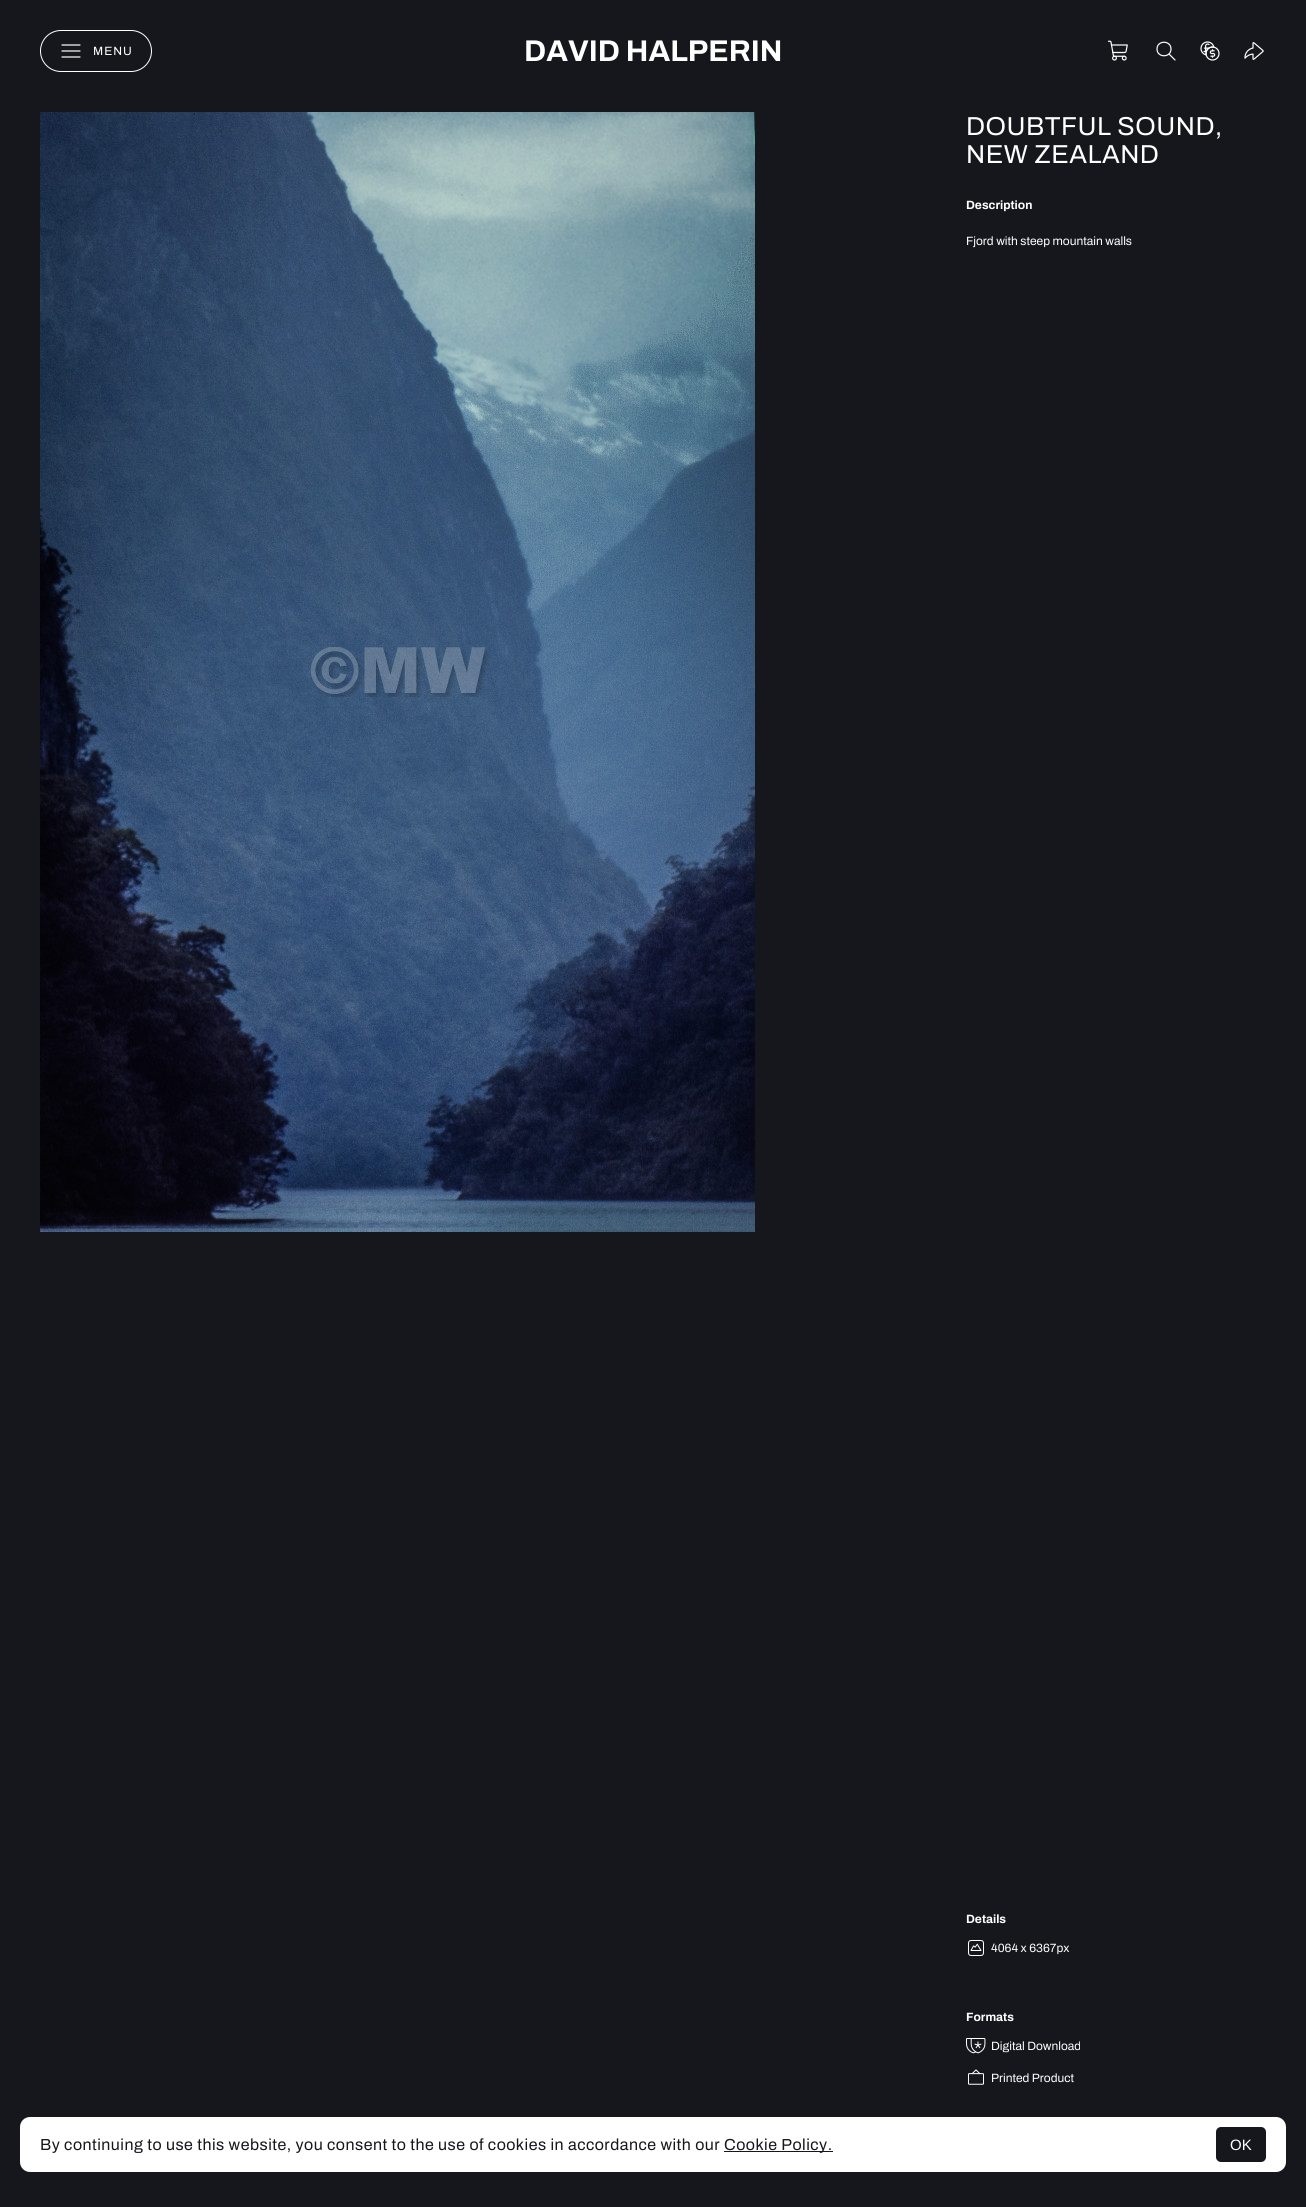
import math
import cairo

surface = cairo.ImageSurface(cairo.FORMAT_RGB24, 1306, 2207)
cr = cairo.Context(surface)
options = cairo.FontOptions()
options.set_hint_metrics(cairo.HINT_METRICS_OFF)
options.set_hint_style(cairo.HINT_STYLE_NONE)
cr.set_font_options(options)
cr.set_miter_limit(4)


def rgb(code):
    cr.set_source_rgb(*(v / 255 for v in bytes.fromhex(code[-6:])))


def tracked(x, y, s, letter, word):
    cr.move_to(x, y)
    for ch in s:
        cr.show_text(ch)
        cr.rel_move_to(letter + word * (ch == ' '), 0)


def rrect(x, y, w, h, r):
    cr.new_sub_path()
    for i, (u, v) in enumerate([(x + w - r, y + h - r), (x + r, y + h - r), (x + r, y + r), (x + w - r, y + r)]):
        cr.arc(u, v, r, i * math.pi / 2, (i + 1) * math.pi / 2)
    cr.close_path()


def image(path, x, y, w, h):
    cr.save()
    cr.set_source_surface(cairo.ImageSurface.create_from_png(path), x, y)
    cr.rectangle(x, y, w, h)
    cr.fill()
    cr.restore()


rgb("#16161d")
cr.paint()
rrect(40.5, 30.5, 111, 41, 20.5)
rgb("#ffffff")
cr.set_line_width(1)
cr.stroke()
cr.new_path()
cr.move_to(62, 51)
cr.line_to(80, 51)
cr.move_to(62, 45)
cr.line_to(80, 45)
cr.move_to(62, 57)
cr.line_to(80, 57)
cr.set_line_width(1.2)
cr.set_line_cap(cairo.LINE_CAP_ROUND)
cr.set_line_join(cairo.LINE_JOIN_ROUND)
cr.stroke()
image("img/1.png", 1107, 40, 21, 21)
cr.new_path()
cr.move_to(1175, 60)
cr.line_to(1169, 54)
cr.move_to(1171, 49)
cr.curve_to(1171, 58, 1157, 58, 1157, 49)
cr.curve_to(1157, 40, 1171, 40, 1171, 49)
cr.close_path()
cr.stroke()
image("img/2.png", 1200, 41, 20, 20)
image("img/3.png", 1244, 42, 20, 18)
image("img/4.png", 40, 112, 715, 1120)
image("img/5.png", 968, 1940, 16, 16)
image("img/6.png", 966, 2038, 20, 16)
image("img/7.png", 968, 2069, 16, 16)
rrect(20, 2117, 1266, 55, 10)
cr.fill()
rgb("#16161d")
cr.rectangle(724, 2151, 109, 1)
cr.fill()
rrect(1216, 2127, 50, 35, 5)
cr.fill()
cr.select_font_face("Archivo")
cr.set_font_size(12)
rgb("#ffffff")
tracked(93, 55, "MENU", 1, 0)
cr.select_font_face("Archivo", cairo.FONT_SLANT_NORMAL, cairo.FONT_WEIGHT_BOLD)
cr.set_font_size(30)
cr.move_to(524, 61)
cr.show_text("DAVID HALPERIN")
cr.select_font_face("Archivo")
cr.set_font_size(26)
tracked(966, 135, "DOUBTFUL SOUND,", 0.5, 0)
tracked(966, 163, "NEW ZEALAND", 0.5, 0)
cr.select_font_face("Archivo", cairo.FONT_SLANT_NORMAL, cairo.FONT_WEIGHT_BOLD)
cr.set_font_size(12)
cr.move_to(966, 209)
cr.show_text("Description")
cr.select_font_face("Archivo")
cr.move_to(966, 245)
cr.show_text("Fjord with steep mountain walls")
cr.select_font_face("Archivo", cairo.FONT_SLANT_NORMAL, cairo.FONT_WEIGHT_BOLD)
cr.move_to(966, 1923)
cr.show_text("Details")
cr.select_font_face("Archivo")
cr.move_to(991, 1952)
cr.show_text("4064 x 6367px")
cr.select_font_face("Archivo", cairo.FONT_SLANT_NORMAL, cairo.FONT_WEIGHT_BOLD)
cr.move_to(966, 2021)
cr.show_text("Formats")
cr.select_font_face("Archivo")
cr.move_to(991, 2050)
cr.show_text("Digital Download")
cr.move_to(991, 2082)
cr.show_text("Printed Product")
cr.set_font_size(16)
rgb("#16161d")
tracked(40, 2150, "By continuing to use this website, you consent to the use of cookies in accordance with our", 0.5, 0)
tracked(724, 2150, "Cookie Policy.", 0.5, 0)
cr.select_font_face("Liberation Sans")
cr.set_font_size(15)
rgb("#ffffff")
cr.move_to(1230, 2150)
cr.show_text("OK")
surface.write_to_png("page.png")
